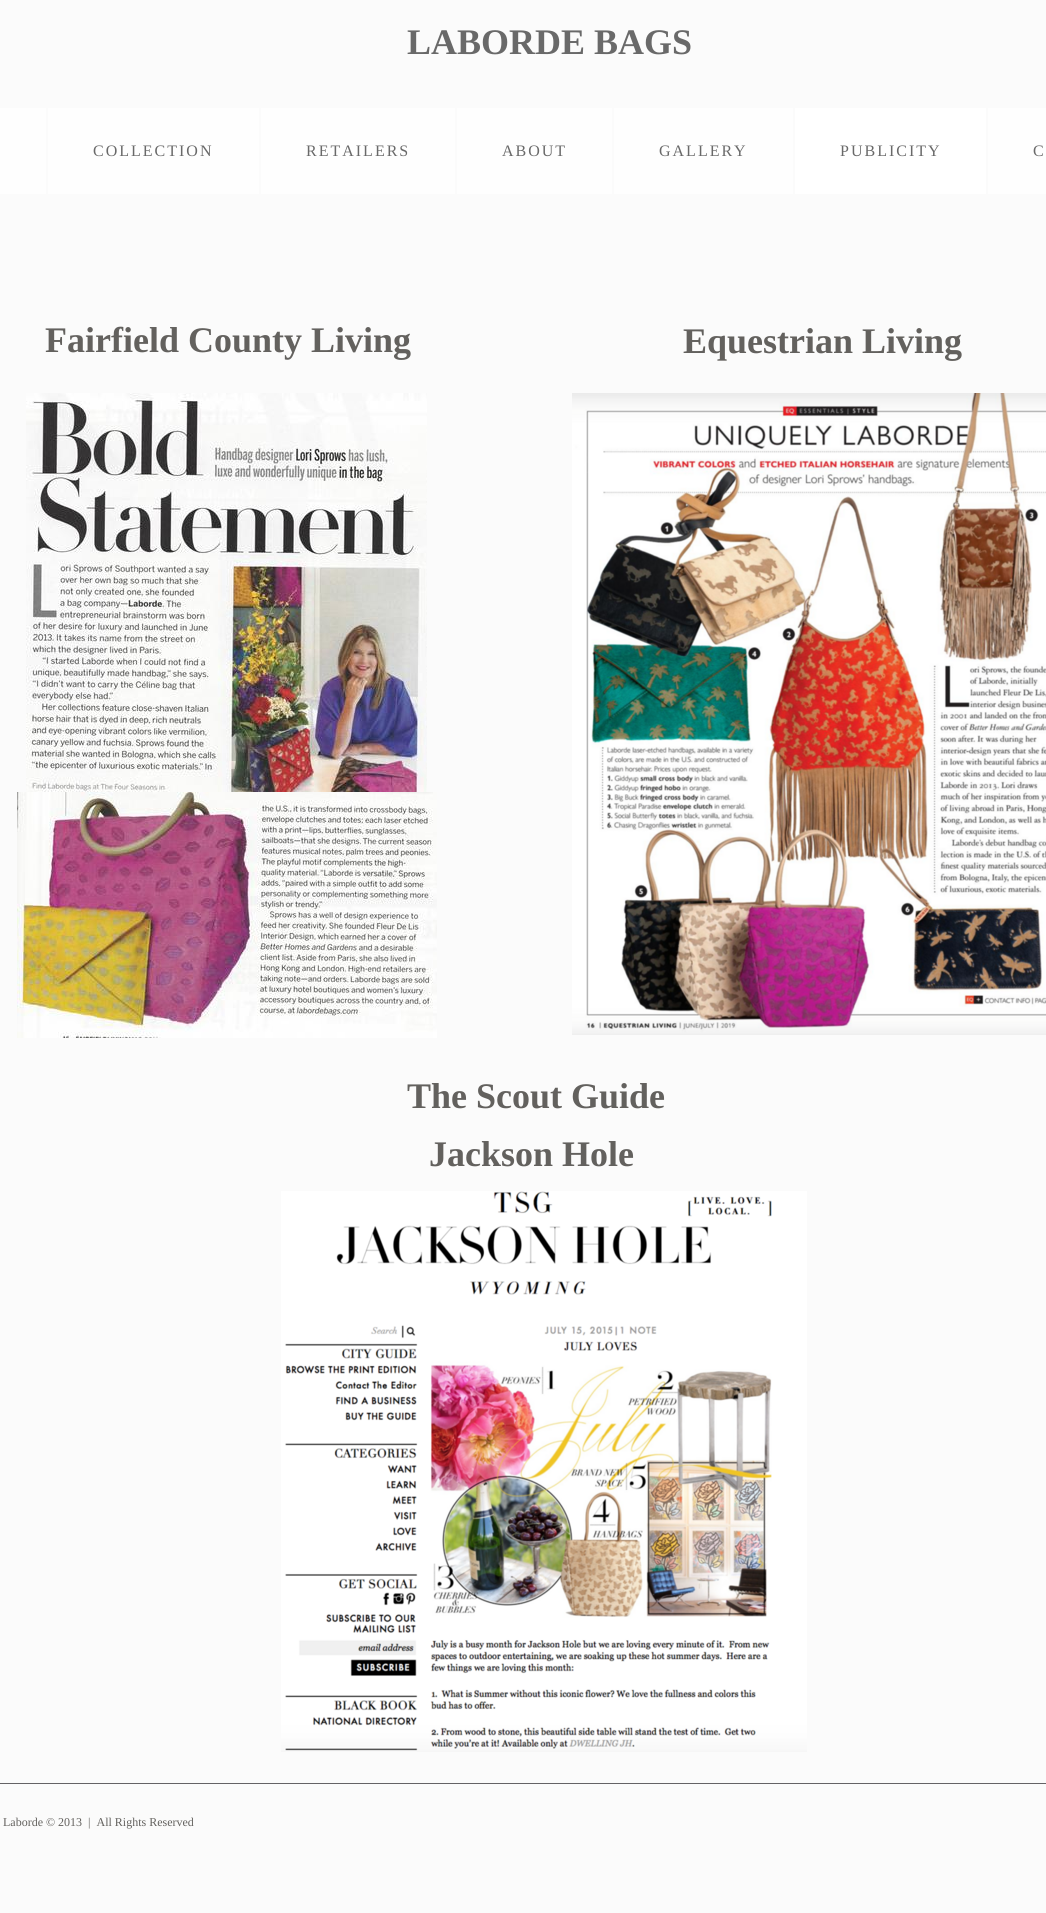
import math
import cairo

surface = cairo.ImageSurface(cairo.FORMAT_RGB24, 1046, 1913)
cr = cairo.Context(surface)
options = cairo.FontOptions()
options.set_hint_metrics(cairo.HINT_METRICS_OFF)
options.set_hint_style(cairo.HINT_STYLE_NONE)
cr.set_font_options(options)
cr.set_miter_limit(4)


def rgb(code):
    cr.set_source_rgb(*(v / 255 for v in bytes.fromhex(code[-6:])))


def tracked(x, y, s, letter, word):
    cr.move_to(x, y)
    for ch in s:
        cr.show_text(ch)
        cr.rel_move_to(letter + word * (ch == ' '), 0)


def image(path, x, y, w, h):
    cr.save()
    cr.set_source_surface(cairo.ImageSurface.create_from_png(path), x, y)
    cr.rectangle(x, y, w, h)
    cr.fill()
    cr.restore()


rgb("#fbfbfb")
cr.paint()
for x, y, w, h, color in [
    (0, 108, 46, 86, "#fefefe"),
    (48, 108, 211, 86, "#fefefe"),
    (261, 108, 194, 86, "#fefefe"),
    (457, 108, 155, 86, "#fefefe"),
    (614, 108, 179, 86, "#fefefe"),
    (795, 108, 191, 86, "#ffffff"),
    (988, 108, 58, 86, "#fefefe"),
]:
    rgb(color)
    cr.rectangle(x, y, w, h)
    cr.fill()
image("img/1.png", 26, 393, 401, 399)
image("img/2.png", 572, 393, 474, 642)
image("img/3.png", 17, 792, 420, 246)
image("img/4.png", 281, 1191, 526, 561)
rgb("#646265")
cr.rectangle(0, 1783, 1046, 1)
cr.fill()
cr.select_font_face("Liberation Serif", cairo.FONT_SLANT_NORMAL, cairo.FONT_WEIGHT_BOLD)
cr.set_font_size(36)
rgb("#696969")
cr.move_to(407, 54)
cr.show_text("LABORDE BAGS")
cr.select_font_face("Liberation Serif")
cr.set_font_size(16)
for x, y, s in [
    (93, 156, "COLLECTION"),
    (306, 156, "RETAILERS"),
    (502, 156, "ABOUT"),
    (659, 156, "GALLERY"),
    (840, 156, "PUBLICITY"),
    (1033, 156, "C"),
]:
    tracked(x, y, s, 2, 0)
cr.select_font_face("Liberation Serif", cairo.FONT_SLANT_NORMAL, cairo.FONT_WEIGHT_BOLD)
cr.set_font_size(36)
rgb("#63615e")
for x, y, s in [
    (45, 352, "Fairfield County Living"),
    (683, 353, "Equestrian Living"),
    (407, 1108, "The Scout Guide"),
    (429, 1166, "Jackson Hole"),
]:
    cr.move_to(x, y)
    cr.show_text(s)
cr.select_font_face("Liberation Serif")
cr.set_font_size(12)
cr.move_to(3, 1826)
cr.show_text("Laborde © 2013  |  All Rights Reserved")
surface.write_to_png("page.png")
